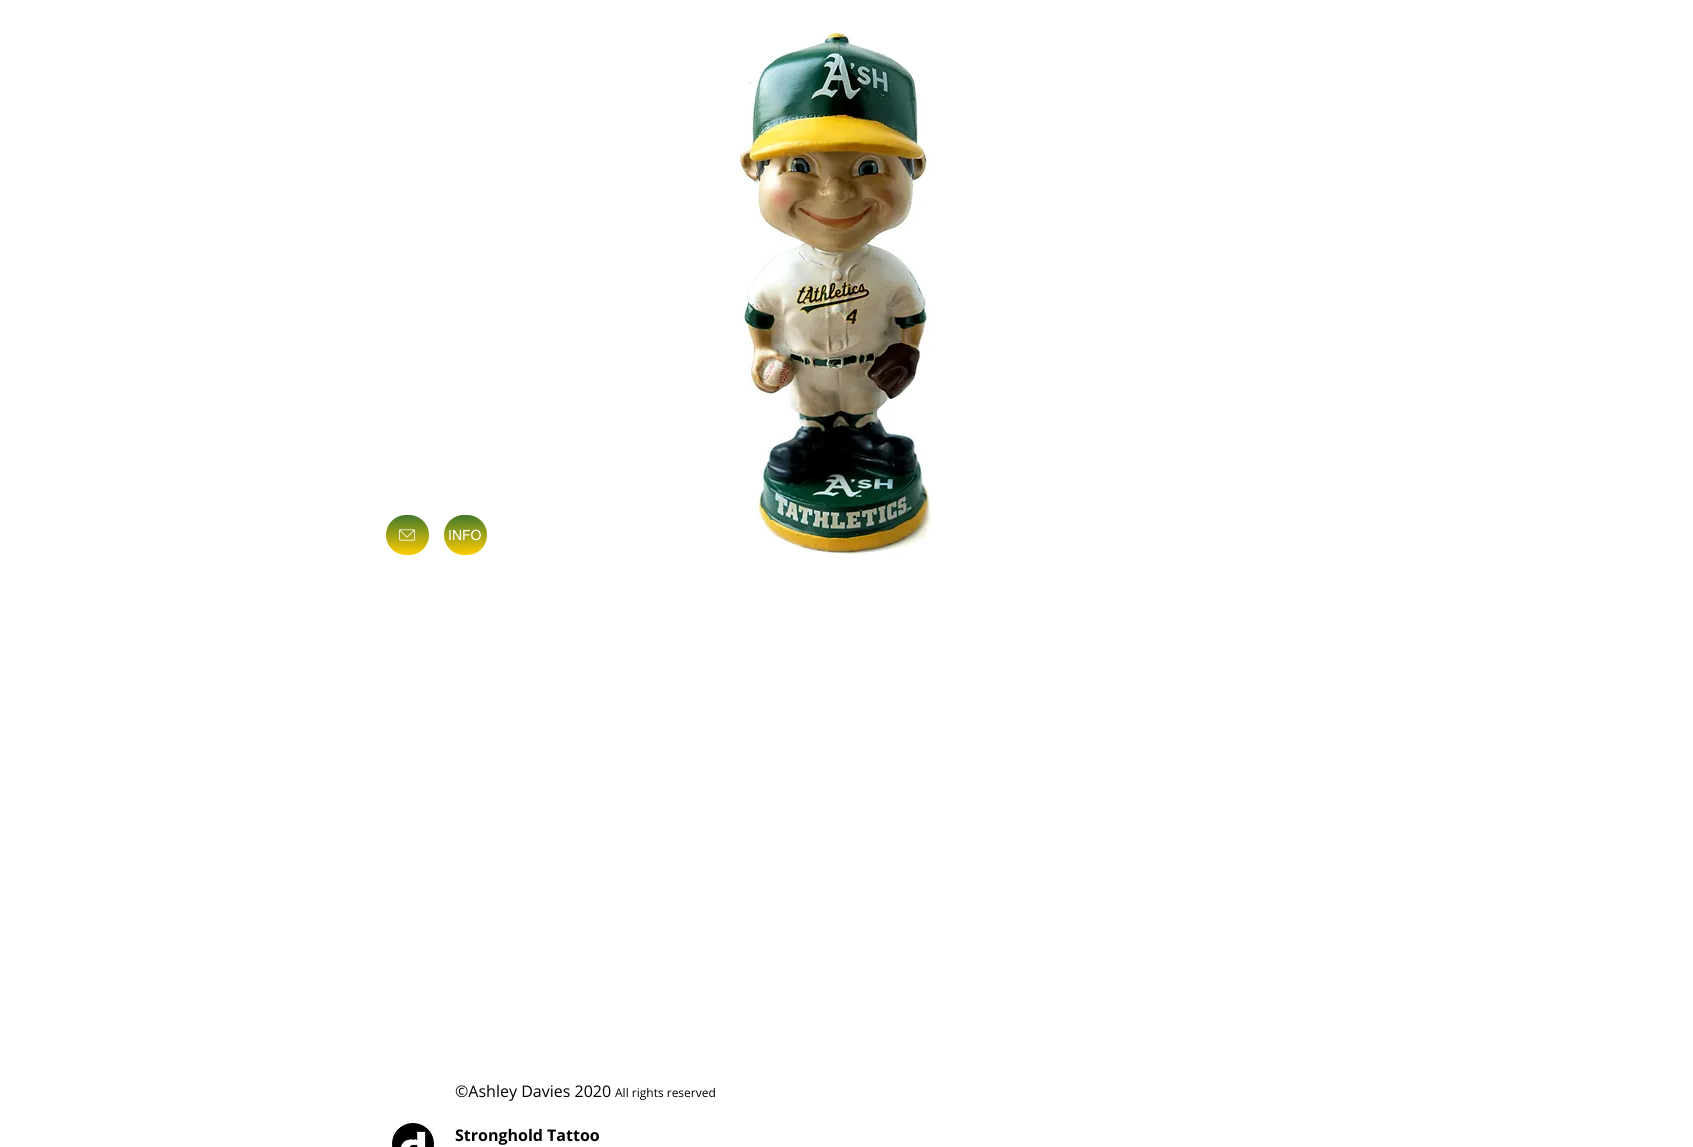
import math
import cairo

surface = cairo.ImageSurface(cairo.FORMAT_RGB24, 1693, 1147)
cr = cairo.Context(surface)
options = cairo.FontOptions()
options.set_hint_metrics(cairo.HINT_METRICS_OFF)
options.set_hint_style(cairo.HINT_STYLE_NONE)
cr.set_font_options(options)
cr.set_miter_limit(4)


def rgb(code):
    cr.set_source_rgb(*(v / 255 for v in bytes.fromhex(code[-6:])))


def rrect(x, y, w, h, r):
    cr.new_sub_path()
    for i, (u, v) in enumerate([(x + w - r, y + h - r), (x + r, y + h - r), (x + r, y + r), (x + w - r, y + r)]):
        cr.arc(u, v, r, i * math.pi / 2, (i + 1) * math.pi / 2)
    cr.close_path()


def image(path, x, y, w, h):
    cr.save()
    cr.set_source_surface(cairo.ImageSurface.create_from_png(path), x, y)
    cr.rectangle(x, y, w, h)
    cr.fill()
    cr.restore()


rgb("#ffffff")
cr.paint()
gradient = cairo.LinearGradient(408, 515, 408, 555)
gradient.add_color_stop_rgba(0, 0.263, 0.478, 0.176, 1)
gradient.add_color_stop_rgba(1, 1, 0.8, 0, 1)
cr.set_source(gradient)
rrect(386, 515, 43, 40, 20)
cr.fill()
image("img/1.png", 399, 529, 16, 12)
rgb("#ffcc00")
rrect(444, 515, 43, 40, 20)
cr.fill()
gradient = cairo.LinearGradient(465, 515, 466, 555)
gradient.add_color_stop_rgba(0, 0.263, 0.478, 0.176, 1)
gradient.add_color_stop_rgba(1, 0.263, 0.478, 0.176, 0)
cr.set_source(gradient)
rrect(444, 515, 43, 40, 20)
cr.fill()
image("img/2.png", 739, 31, 194, 524)
image("img/3.png", 392, 1123, 42, 24)
cr.select_font_face("helvetica")
cr.set_font_size(14)
rgb("#ffffff")
cr.move_to(448, 540)
cr.show_text("INFO")
cr.select_font_face("Open Sans")
cr.set_font_size(16)
rgb("#000000")
cr.move_to(455, 1097)
cr.show_text("©Ashley Davies 2020")
cr.set_font_size(12)
cr.move_to(615, 1097)
cr.show_text("All rights reserved")
cr.select_font_face("Open Sans", cairo.FONT_SLANT_NORMAL, cairo.FONT_WEIGHT_BOLD)
cr.set_font_size(16)
cr.move_to(455, 1141)
cr.show_text("Stronghold Tattoo")
surface.write_to_png("page.png")
